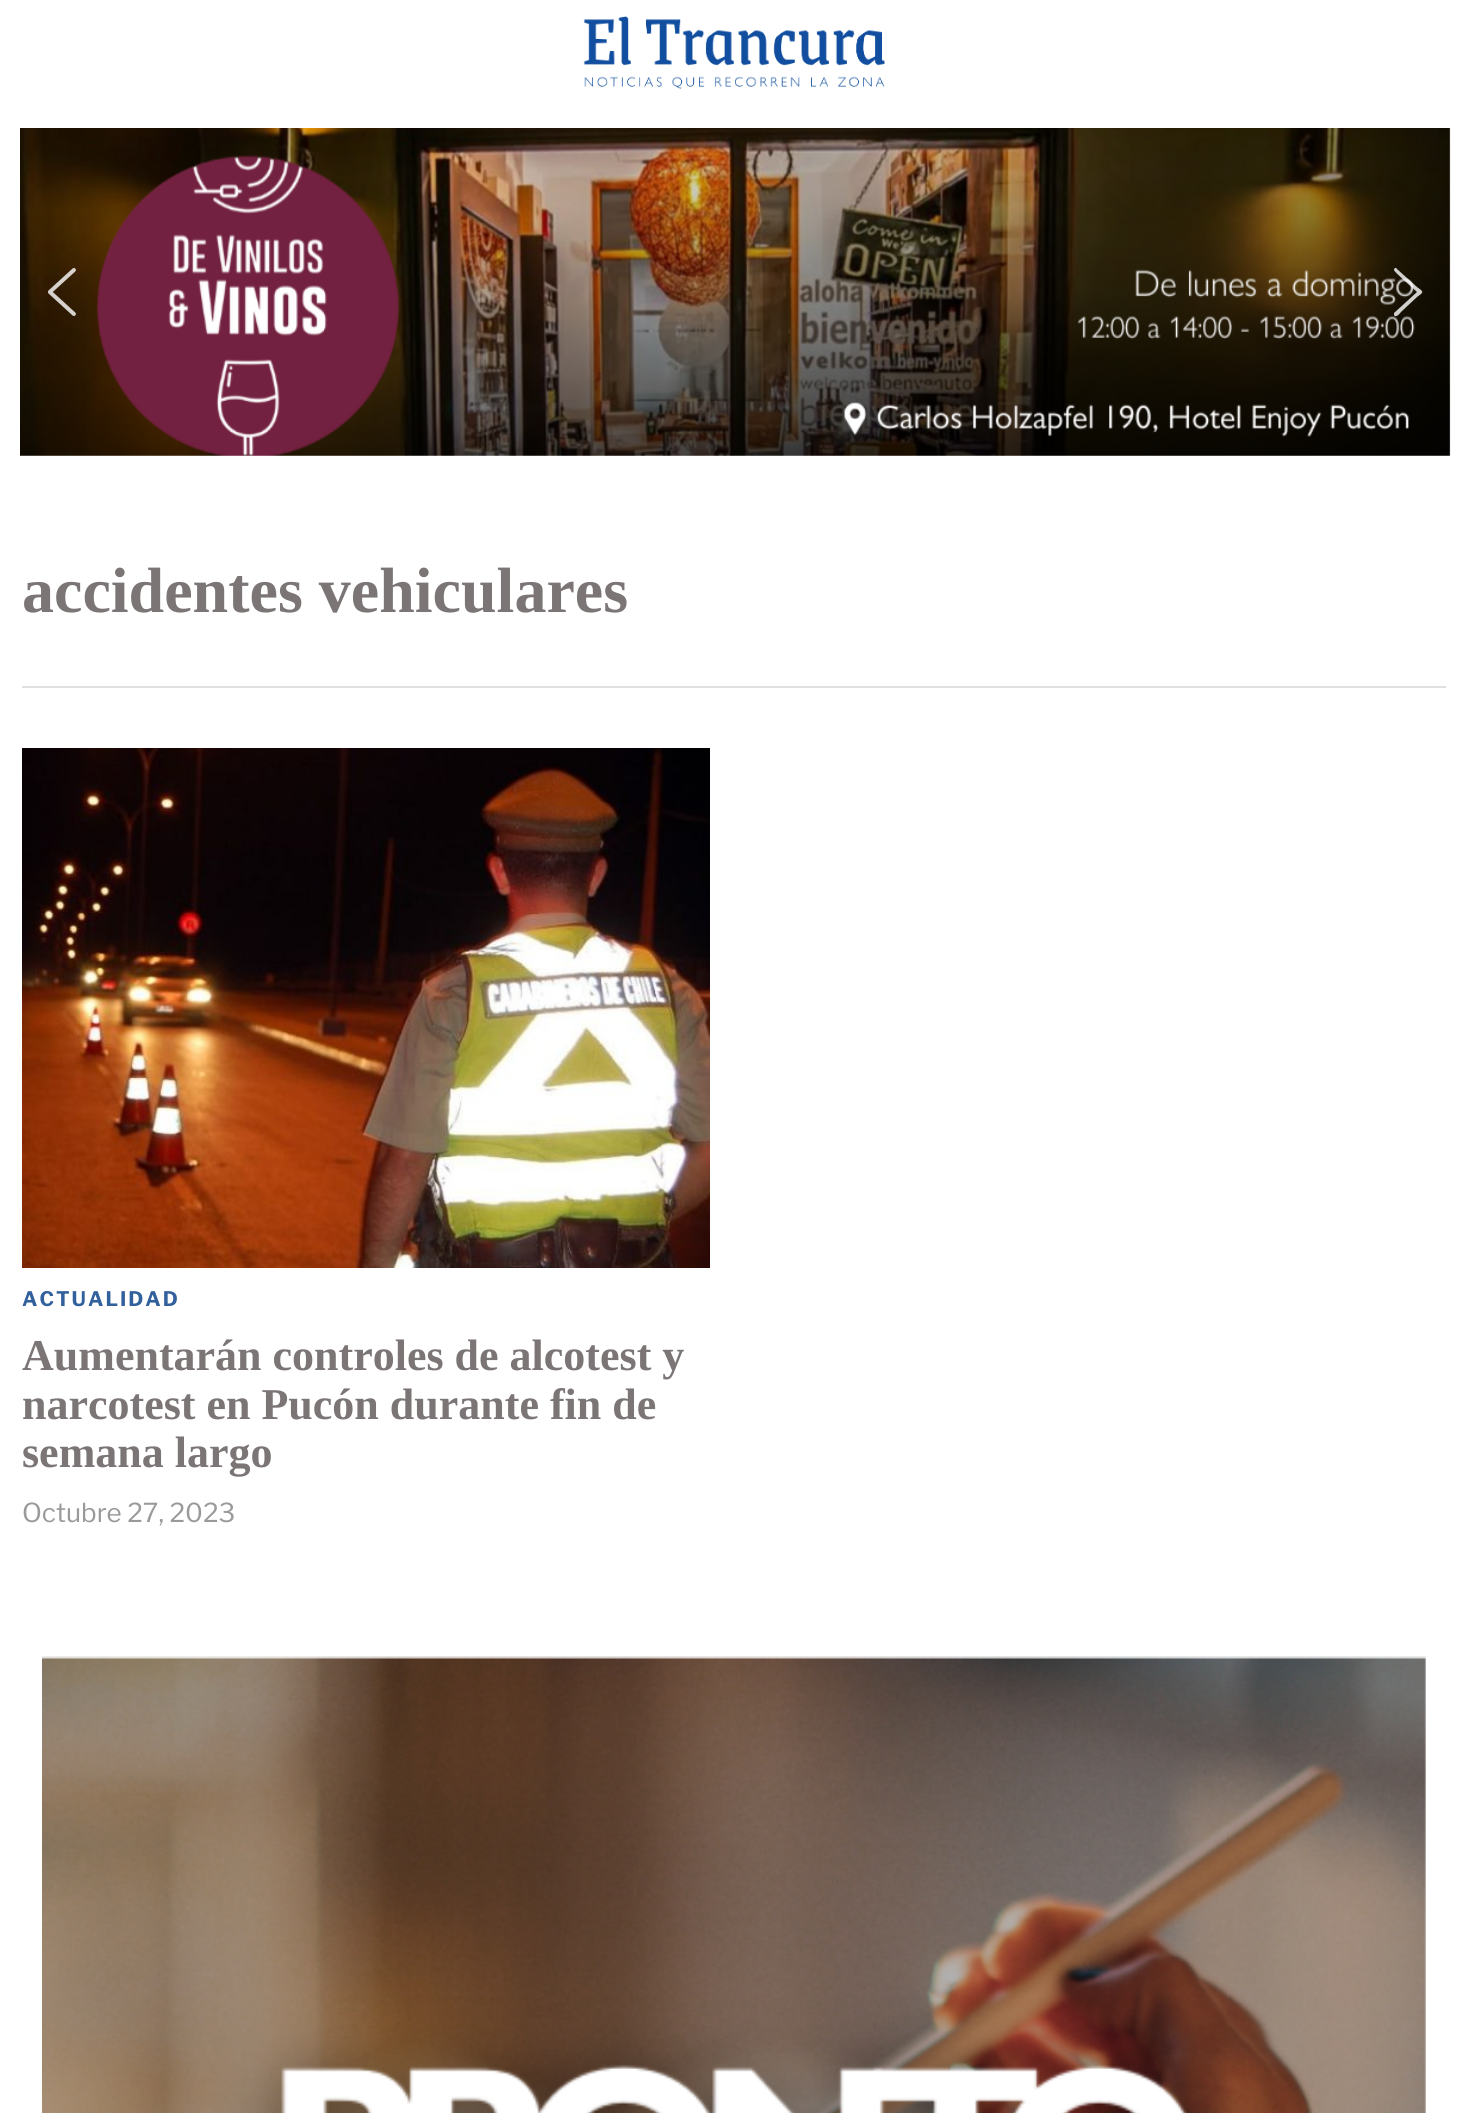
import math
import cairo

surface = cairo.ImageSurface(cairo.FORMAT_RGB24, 1468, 2113)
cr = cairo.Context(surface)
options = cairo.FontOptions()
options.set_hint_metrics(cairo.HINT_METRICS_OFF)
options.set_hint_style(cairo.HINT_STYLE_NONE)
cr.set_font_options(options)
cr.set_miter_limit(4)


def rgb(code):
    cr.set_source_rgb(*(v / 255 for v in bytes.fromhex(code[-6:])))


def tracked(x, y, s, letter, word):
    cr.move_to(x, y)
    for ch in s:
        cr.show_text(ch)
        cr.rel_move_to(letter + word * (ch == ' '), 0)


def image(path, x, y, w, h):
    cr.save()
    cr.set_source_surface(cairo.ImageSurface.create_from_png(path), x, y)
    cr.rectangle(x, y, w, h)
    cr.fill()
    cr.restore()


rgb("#ffffff")
cr.paint()
image("img/1.png", 583, 16, 302, 73)
image("img/2.png", 20, 128, 1431, 328)
image("img/3.png", 48, 268, 28, 48)
cr.set_source_rgba(1, 1, 1, 0.8)
cr.set_fill_rule(cairo.FILL_RULE_EVEN_ODD)
cr.new_path()
cr.move_to(1397, 269)
cr.curve_to(1396, 267, 1394, 268, 1394, 270)
cr.curve_to(1394, 272, 1414, 289, 1417, 292)
cr.line_to(1394, 313)
cr.line_to(1394, 315)
cr.curve_to(1396, 319, 1401, 312, 1401, 312)
cr.line_to(1417, 297)
cr.curve_to(1424, 292, 1424, 292, 1417, 287)
cr.close_path()
cr.fill()
rgb("#e0e0e0")
cr.rectangle(22, 686, 1424, 2)
cr.fill()
image("img/4.png", 22, 748, 688, 520)
image("img/5.png", 42, 1656, 1384, 457)
cr.select_font_face("Tinos", cairo.FONT_SLANT_NORMAL, cairo.FONT_WEIGHT_BOLD)
cr.set_font_size(64)
rgb("#7b7575")
cr.move_to(22, 612)
cr.show_text("accidentes vehiculares")
cr.select_font_face("Libre Franklin", cairo.FONT_SLANT_NORMAL, cairo.FONT_WEIGHT_BOLD)
cr.set_font_size(20)
rgb("#31609c")
tracked(22, 1306, "ACTUALIDAD", 2, 0)
cr.select_font_face("Tinos", cairo.FONT_SLANT_NORMAL, cairo.FONT_WEIGHT_BOLD)
cr.set_font_size(44)
rgb("#7b7575")
for x, y, s in [
    (22, 1370, "Aumentarán controles de alcotest y"),
    (22, 1419, "narcotest en Pucón durante fin de"),
    (22, 1467, "semana largo"),
]:
    cr.move_to(x, y)
    cr.show_text(s)
cr.select_font_face("Libre Franklin")
cr.set_font_size(26)
rgb("#999999")
cr.move_to(22, 1522)
cr.show_text("Octubre 27, 2023")
surface.write_to_png("page.png")
